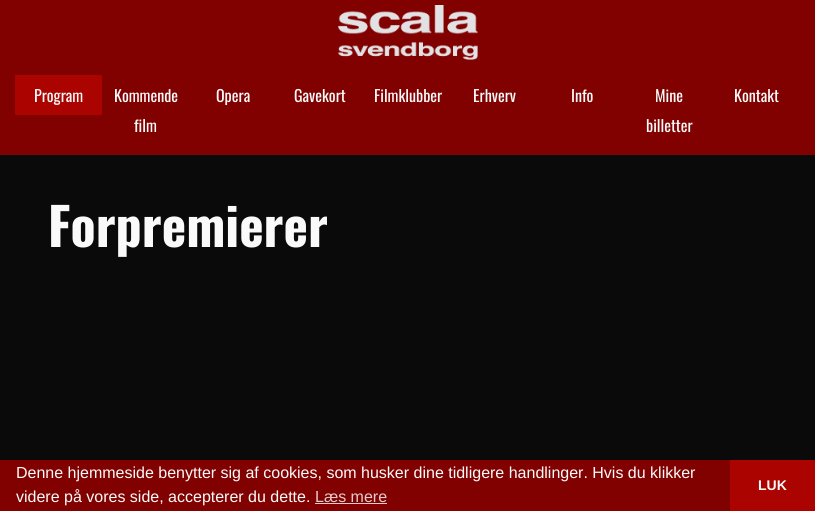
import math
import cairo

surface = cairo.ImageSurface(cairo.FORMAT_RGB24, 815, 511)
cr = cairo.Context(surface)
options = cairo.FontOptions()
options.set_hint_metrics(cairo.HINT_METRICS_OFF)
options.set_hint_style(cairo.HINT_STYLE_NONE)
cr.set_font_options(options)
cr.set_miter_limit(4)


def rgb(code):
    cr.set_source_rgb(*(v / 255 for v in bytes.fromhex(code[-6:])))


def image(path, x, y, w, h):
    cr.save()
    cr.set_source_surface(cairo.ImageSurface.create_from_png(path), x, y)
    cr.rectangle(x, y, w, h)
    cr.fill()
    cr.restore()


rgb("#810101")
cr.paint()
image("img/1.png", 338, 5, 140, 55)
for x, y, w, h, color in [
    (15, 75, 87, 40, "#aa0300"),
    (0, 155, 815, 305, "#0a0a0a"),
    (315, 503, 72, 1, "#e6cccc"),
    (730, 460, 85, 51, "#aa0300"),
]:
    rgb(color)
    cr.rectangle(x, y, w, h)
    cr.fill()
cr.select_font_face("Oswald")
cr.set_font_size(16)
rgb("#fafafa")
for x, y, s in [
    (34, 102, "Program"),
    (114, 102, "Kommende"),
    (134, 132, "film"),
    (216, 102, "Opera"),
    (294, 102, "Gavekort"),
    (374, 102, "Filmklubber"),
    (473, 102, "Erhverv"),
    (571, 102, "Info"),
    (655, 102, "Mine"),
    (646, 132, "billetter"),
    (734, 102, "Kontakt"),
]:
    cr.move_to(x, y)
    cr.show_text(s)
cr.select_font_face("Oswald", cairo.FONT_SLANT_NORMAL, cairo.FONT_WEIGHT_BOLD)
cr.set_font_size(52)
cr.move_to(48, 247)
cr.show_text("Forpremierer")
cr.select_font_face("Liberation Sans")
cr.set_font_size(16)
cr.move_to(16, 478)
cr.show_text("Denne hjemmeside benytter sig af cookies, som husker dine tidligere handlinger. Hvis du klikker")
cr.move_to(16, 502)
cr.show_text("videre på vores side, accepterer du dette.")
rgb("#e6cccc")
cr.move_to(315, 502)
cr.show_text("Læs mere")
cr.select_font_face("Liberation Sans", cairo.FONT_SLANT_NORMAL, cairo.FONT_WEIGHT_BOLD)
cr.set_font_size(14)
rgb("#fafafa")
cr.move_to(758, 490)
cr.show_text("LUK")
surface.write_to_png("page.png")
